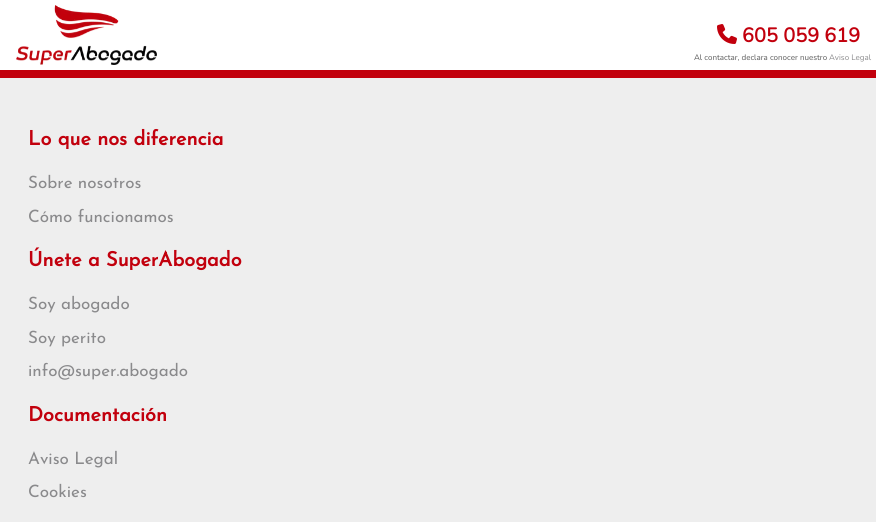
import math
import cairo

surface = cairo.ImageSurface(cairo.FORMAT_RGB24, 876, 522)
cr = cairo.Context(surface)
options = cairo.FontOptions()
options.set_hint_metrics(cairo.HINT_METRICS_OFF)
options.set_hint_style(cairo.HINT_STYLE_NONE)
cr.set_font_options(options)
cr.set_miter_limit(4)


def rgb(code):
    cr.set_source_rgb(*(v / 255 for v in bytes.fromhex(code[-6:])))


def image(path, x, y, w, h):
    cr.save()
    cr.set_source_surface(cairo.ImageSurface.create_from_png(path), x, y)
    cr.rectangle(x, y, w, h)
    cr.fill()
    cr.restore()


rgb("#eeeeee")
cr.paint()
rgb("#ffffff")
cr.rectangle(0, 0, 876, 70)
cr.fill()
rgb("#c2000d")
cr.rectangle(0, 70, 876, 8)
cr.fill()
image("img/1.png", 16, 5, 141, 60)
image("img/2.png", 717, 24, 20, 20)
cr.select_font_face("Nunito", cairo.FONT_SLANT_NORMAL, cairo.FONT_WEIGHT_BOLD)
cr.set_font_size(20)
cr.move_to(742, 42)
cr.show_text("605 059 619")
cr.select_font_face("Nunito ExtraLight")
cr.set_font_size(8)
rgb("#595959")
cr.move_to(694, 60)
cr.show_text("Al contactar, declara conocer nuestro")
rgb("#8a8a8c")
cr.move_to(829, 60)
cr.show_text("Aviso Legal")
cr.select_font_face("Josefin Sans", cairo.FONT_SLANT_NORMAL, cairo.FONT_WEIGHT_BOLD)
cr.set_font_size(20)
rgb("#c2000d")
cr.move_to(28, 145)
cr.show_text("Lo que nos diferencia")
cr.select_font_face("Josefin Sans Thin")
cr.set_font_size(17)
rgb("#8a8a8c")
cr.move_to(28, 188)
cr.show_text("Sobre nosotros")
cr.move_to(28, 222)
cr.show_text("Cómo funcionamos")
cr.select_font_face("Josefin Sans", cairo.FONT_SLANT_NORMAL, cairo.FONT_WEIGHT_BOLD)
cr.set_font_size(20)
rgb("#c2000d")
cr.move_to(28, 266)
cr.show_text("Únete a SuperAbogado")
cr.select_font_face("Josefin Sans Thin")
cr.set_font_size(17)
rgb("#8a8a8c")
for x, y, s in [
    (28, 309, "Soy abogado"),
    (28, 343, "Soy perito"),
    (28, 376, "info@super.abogado"),
]:
    cr.move_to(x, y)
    cr.show_text(s)
cr.select_font_face("Josefin Sans", cairo.FONT_SLANT_NORMAL, cairo.FONT_WEIGHT_BOLD)
cr.set_font_size(20)
rgb("#c2000d")
cr.move_to(28, 421)
cr.show_text("Documentación")
cr.select_font_face("Josefin Sans Thin")
cr.set_font_size(17)
rgb("#8a8a8c")
cr.move_to(28, 464)
cr.show_text("Aviso Legal")
cr.move_to(28, 497)
cr.show_text("Cookies")
surface.write_to_png("page.png")
